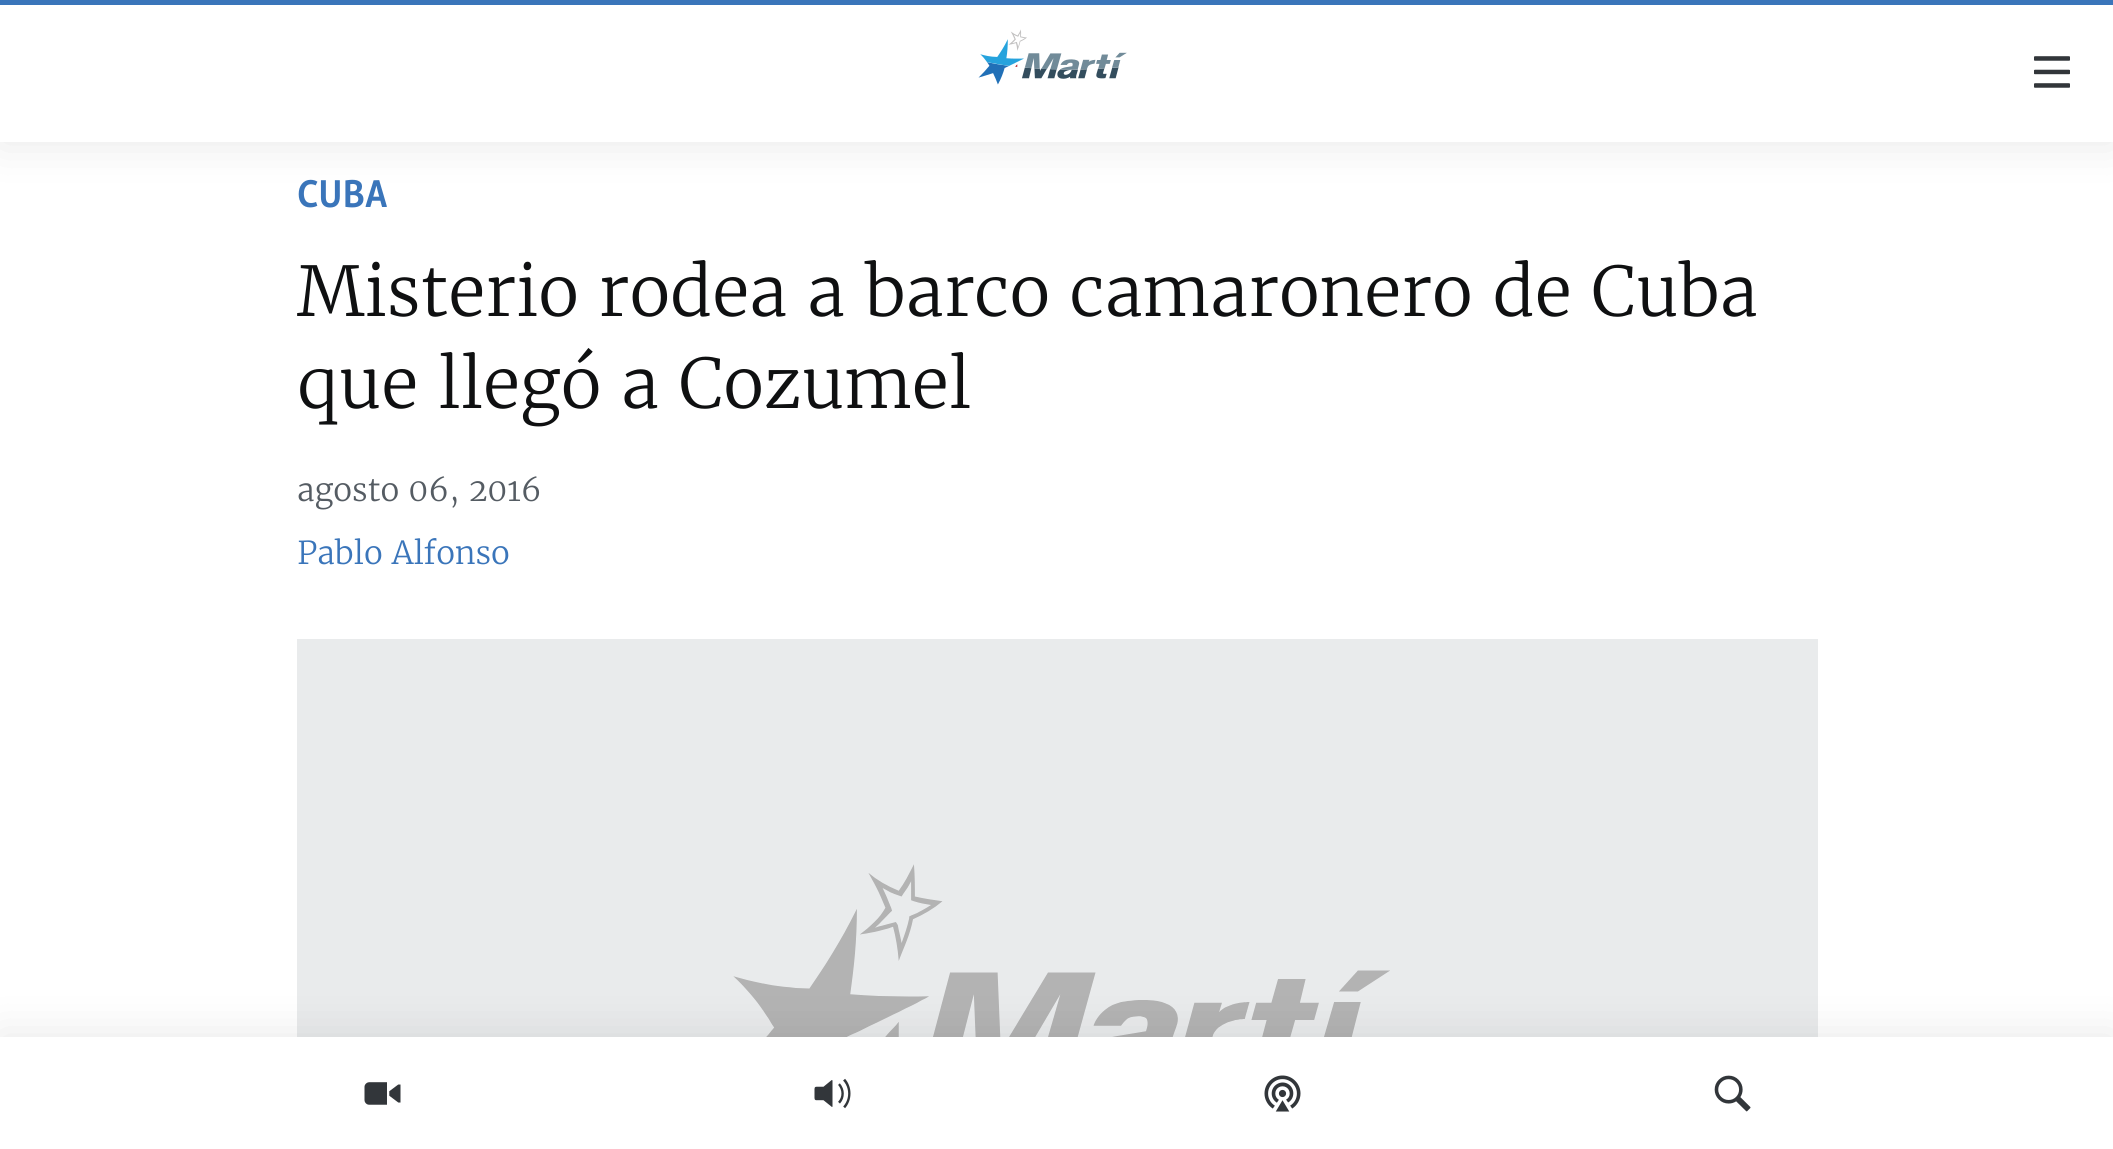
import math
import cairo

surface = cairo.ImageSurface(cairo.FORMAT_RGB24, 2113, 1149)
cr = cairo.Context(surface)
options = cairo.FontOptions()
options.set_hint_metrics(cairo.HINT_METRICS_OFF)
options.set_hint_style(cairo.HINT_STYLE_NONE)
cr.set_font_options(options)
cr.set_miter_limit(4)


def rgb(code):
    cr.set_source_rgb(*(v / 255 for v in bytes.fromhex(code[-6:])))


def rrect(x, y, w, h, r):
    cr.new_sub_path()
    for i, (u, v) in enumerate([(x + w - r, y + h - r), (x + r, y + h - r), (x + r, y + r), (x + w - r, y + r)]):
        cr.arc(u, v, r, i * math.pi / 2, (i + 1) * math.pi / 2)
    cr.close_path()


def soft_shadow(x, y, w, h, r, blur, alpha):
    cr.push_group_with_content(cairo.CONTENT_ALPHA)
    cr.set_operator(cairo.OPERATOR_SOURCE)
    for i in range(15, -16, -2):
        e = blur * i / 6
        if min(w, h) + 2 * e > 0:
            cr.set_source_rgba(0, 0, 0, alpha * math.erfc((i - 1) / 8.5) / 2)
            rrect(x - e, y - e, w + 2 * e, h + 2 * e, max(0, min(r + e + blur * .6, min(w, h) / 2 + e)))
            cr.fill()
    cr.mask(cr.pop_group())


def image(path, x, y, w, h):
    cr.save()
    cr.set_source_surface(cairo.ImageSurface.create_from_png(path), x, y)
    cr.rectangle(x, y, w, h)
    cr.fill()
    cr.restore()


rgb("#ffffff")
cr.paint()
rgb("#000000")
soft_shadow(0, 0, 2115, 142, 0, 22.5, 0.1)
rgb("#ffffff")
cr.rectangle(0, 5, 2113, 137)
cr.fill()
rgb("#3a75ba")
cr.rectangle(0, 0, 2113, 5)
cr.fill()
image("img/1.png", 978, 29, 149, 56)
image("img/2.png", 2034, 56, 36, 32)
rgb("#e9ebec")
cr.rectangle(297, 639, 1521, 398)
cr.fill()
image("img/7.png", 733, 864, 657, 173)
rgb("#000000")
soft_shadow(0, 1037, 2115, 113, 0, 22.5, 0.1)
rgb("#ffffff")
cr.rectangle(0, 1037, 2113, 112)
cr.fill()
image("img/3.png", 364, 1082, 37, 23)
image("img/4.png", 814, 1078, 37, 31)
image("img/5.png", 1264, 1075, 37, 37)
image("img/6.png", 1714, 1075, 37, 37)
cr.select_font_face("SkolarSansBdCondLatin", cairo.FONT_SLANT_NORMAL, cairo.FONT_WEIGHT_BOLD)
cr.set_font_size(40)
rgb("#3a75ba")
cr.move_to(297, 207)
cr.show_text("CUBA")
cr.select_font_face("Merriweather Light")
cr.set_font_size(68.4)
rgb("#0f1011")
cr.move_to(297, 316)
cr.show_text("Misterio rodea a barco camaronero de Cuba")
cr.move_to(297, 408)
cr.show_text("que llegó a Cozumel")
cr.set_font_size(31.5)
rgb("#555c63")
cr.move_to(297, 501)
cr.show_text("agosto 06, 2016")
rgb("#3a75ba")
cr.move_to(297, 564)
cr.show_text("Pablo Alfonso")
surface.write_to_png("page.png")
